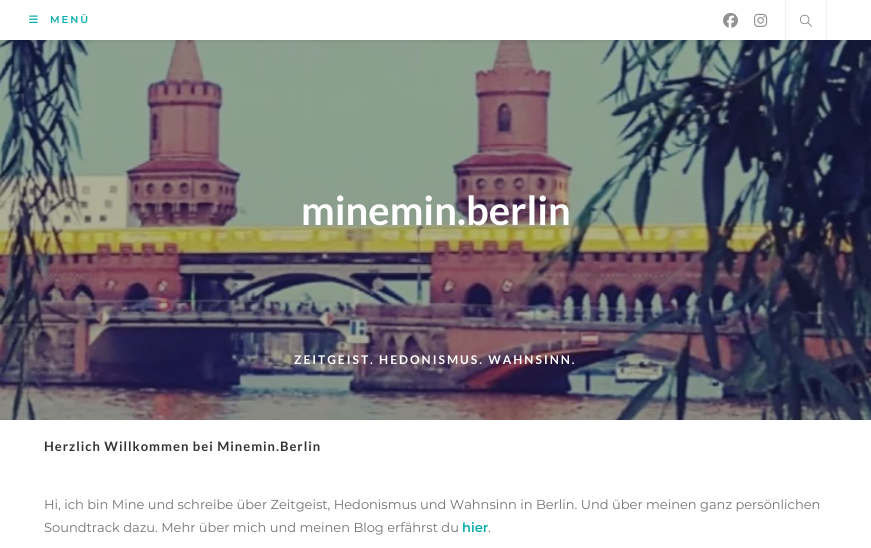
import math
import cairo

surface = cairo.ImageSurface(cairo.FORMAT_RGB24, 871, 548)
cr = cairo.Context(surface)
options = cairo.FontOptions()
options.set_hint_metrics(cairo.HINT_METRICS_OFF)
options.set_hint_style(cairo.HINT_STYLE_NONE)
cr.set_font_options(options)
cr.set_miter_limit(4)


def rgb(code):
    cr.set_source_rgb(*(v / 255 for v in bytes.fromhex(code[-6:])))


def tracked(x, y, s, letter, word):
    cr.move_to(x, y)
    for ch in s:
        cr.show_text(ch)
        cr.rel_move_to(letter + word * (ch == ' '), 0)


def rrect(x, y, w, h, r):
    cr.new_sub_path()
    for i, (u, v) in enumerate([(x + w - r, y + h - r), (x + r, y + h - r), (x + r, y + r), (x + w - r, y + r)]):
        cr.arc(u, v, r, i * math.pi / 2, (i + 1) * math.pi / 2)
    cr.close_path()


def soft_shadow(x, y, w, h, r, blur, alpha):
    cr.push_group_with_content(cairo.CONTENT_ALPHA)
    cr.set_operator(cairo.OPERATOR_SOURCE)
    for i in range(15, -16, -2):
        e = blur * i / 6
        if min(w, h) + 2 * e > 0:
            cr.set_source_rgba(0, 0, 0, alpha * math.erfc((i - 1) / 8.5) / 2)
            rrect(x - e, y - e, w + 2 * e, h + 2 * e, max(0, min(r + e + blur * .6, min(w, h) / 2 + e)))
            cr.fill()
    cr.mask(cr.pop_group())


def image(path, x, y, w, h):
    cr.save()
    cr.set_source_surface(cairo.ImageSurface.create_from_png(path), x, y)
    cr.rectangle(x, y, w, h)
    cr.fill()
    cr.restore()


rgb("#ffffff")
cr.paint()
image("img/1.png", 0, 40, 871, 380)
rgb("#000000")
soft_shadow(0, 1, 871, 40, 0, 2.5, 0.1)
rgb("#ffffff")
cr.rectangle(0, 0, 871, 40)
cr.fill()
image("img/2.png", 29, 15, 9, 8)
image("img/3.png", 723, 12, 15, 16)
image("img/4.png", 754, 13, 14, 14)
rgb("#f1f1f1")
cr.rectangle(826, 0, 1, 40)
cr.fill()
cr.rectangle(785, 0, 1, 40)
cr.fill()
image("img/5.png", 800, 14, 12, 13)
cr.select_font_face("Montserrat SemiBold")
cr.set_font_size(10)
rgb("#08adad")
tracked(50, 23, "MENÜ", 2, 0)
cr.select_font_face("Lato", cairo.FONT_SLANT_NORMAL, cairo.FONT_WEIGHT_BOLD)
cr.set_font_size(40)
rgb("#ffffff")
cr.move_to(301, 225)
cr.show_text("minemin.berlin")
cr.set_font_size(12)
tracked(294, 364, "ZEITGEIST. HEDONISMUS. WAHNSINN.", 2, 0)
cr.set_font_size(13)
rgb("#333333")
tracked(44, 451, "Herzlich Willkommen bei Minemin.Berlin", 1, 0)
cr.select_font_face("Montserrat")
rgb("#717376")
cr.move_to(44, 509)
cr.show_text("Hi, ich bin Mine und schreibe über Zeitgeist, Hedonismus und Wahnsinn in Berlin. Und über meinen ganz persönlichen")
cr.move_to(44, 532)
cr.show_text("Soundtrack dazu. Mehr über mich und meinen Blog erfährst du")
cr.select_font_face("Montserrat SemiBold")
rgb("#08adad")
cr.move_to(462, 532)
cr.show_text("hier")
cr.select_font_face("Montserrat")
rgb("#717376")
cr.move_to(488, 532)
cr.show_text(".")
surface.write_to_png("page.png")
